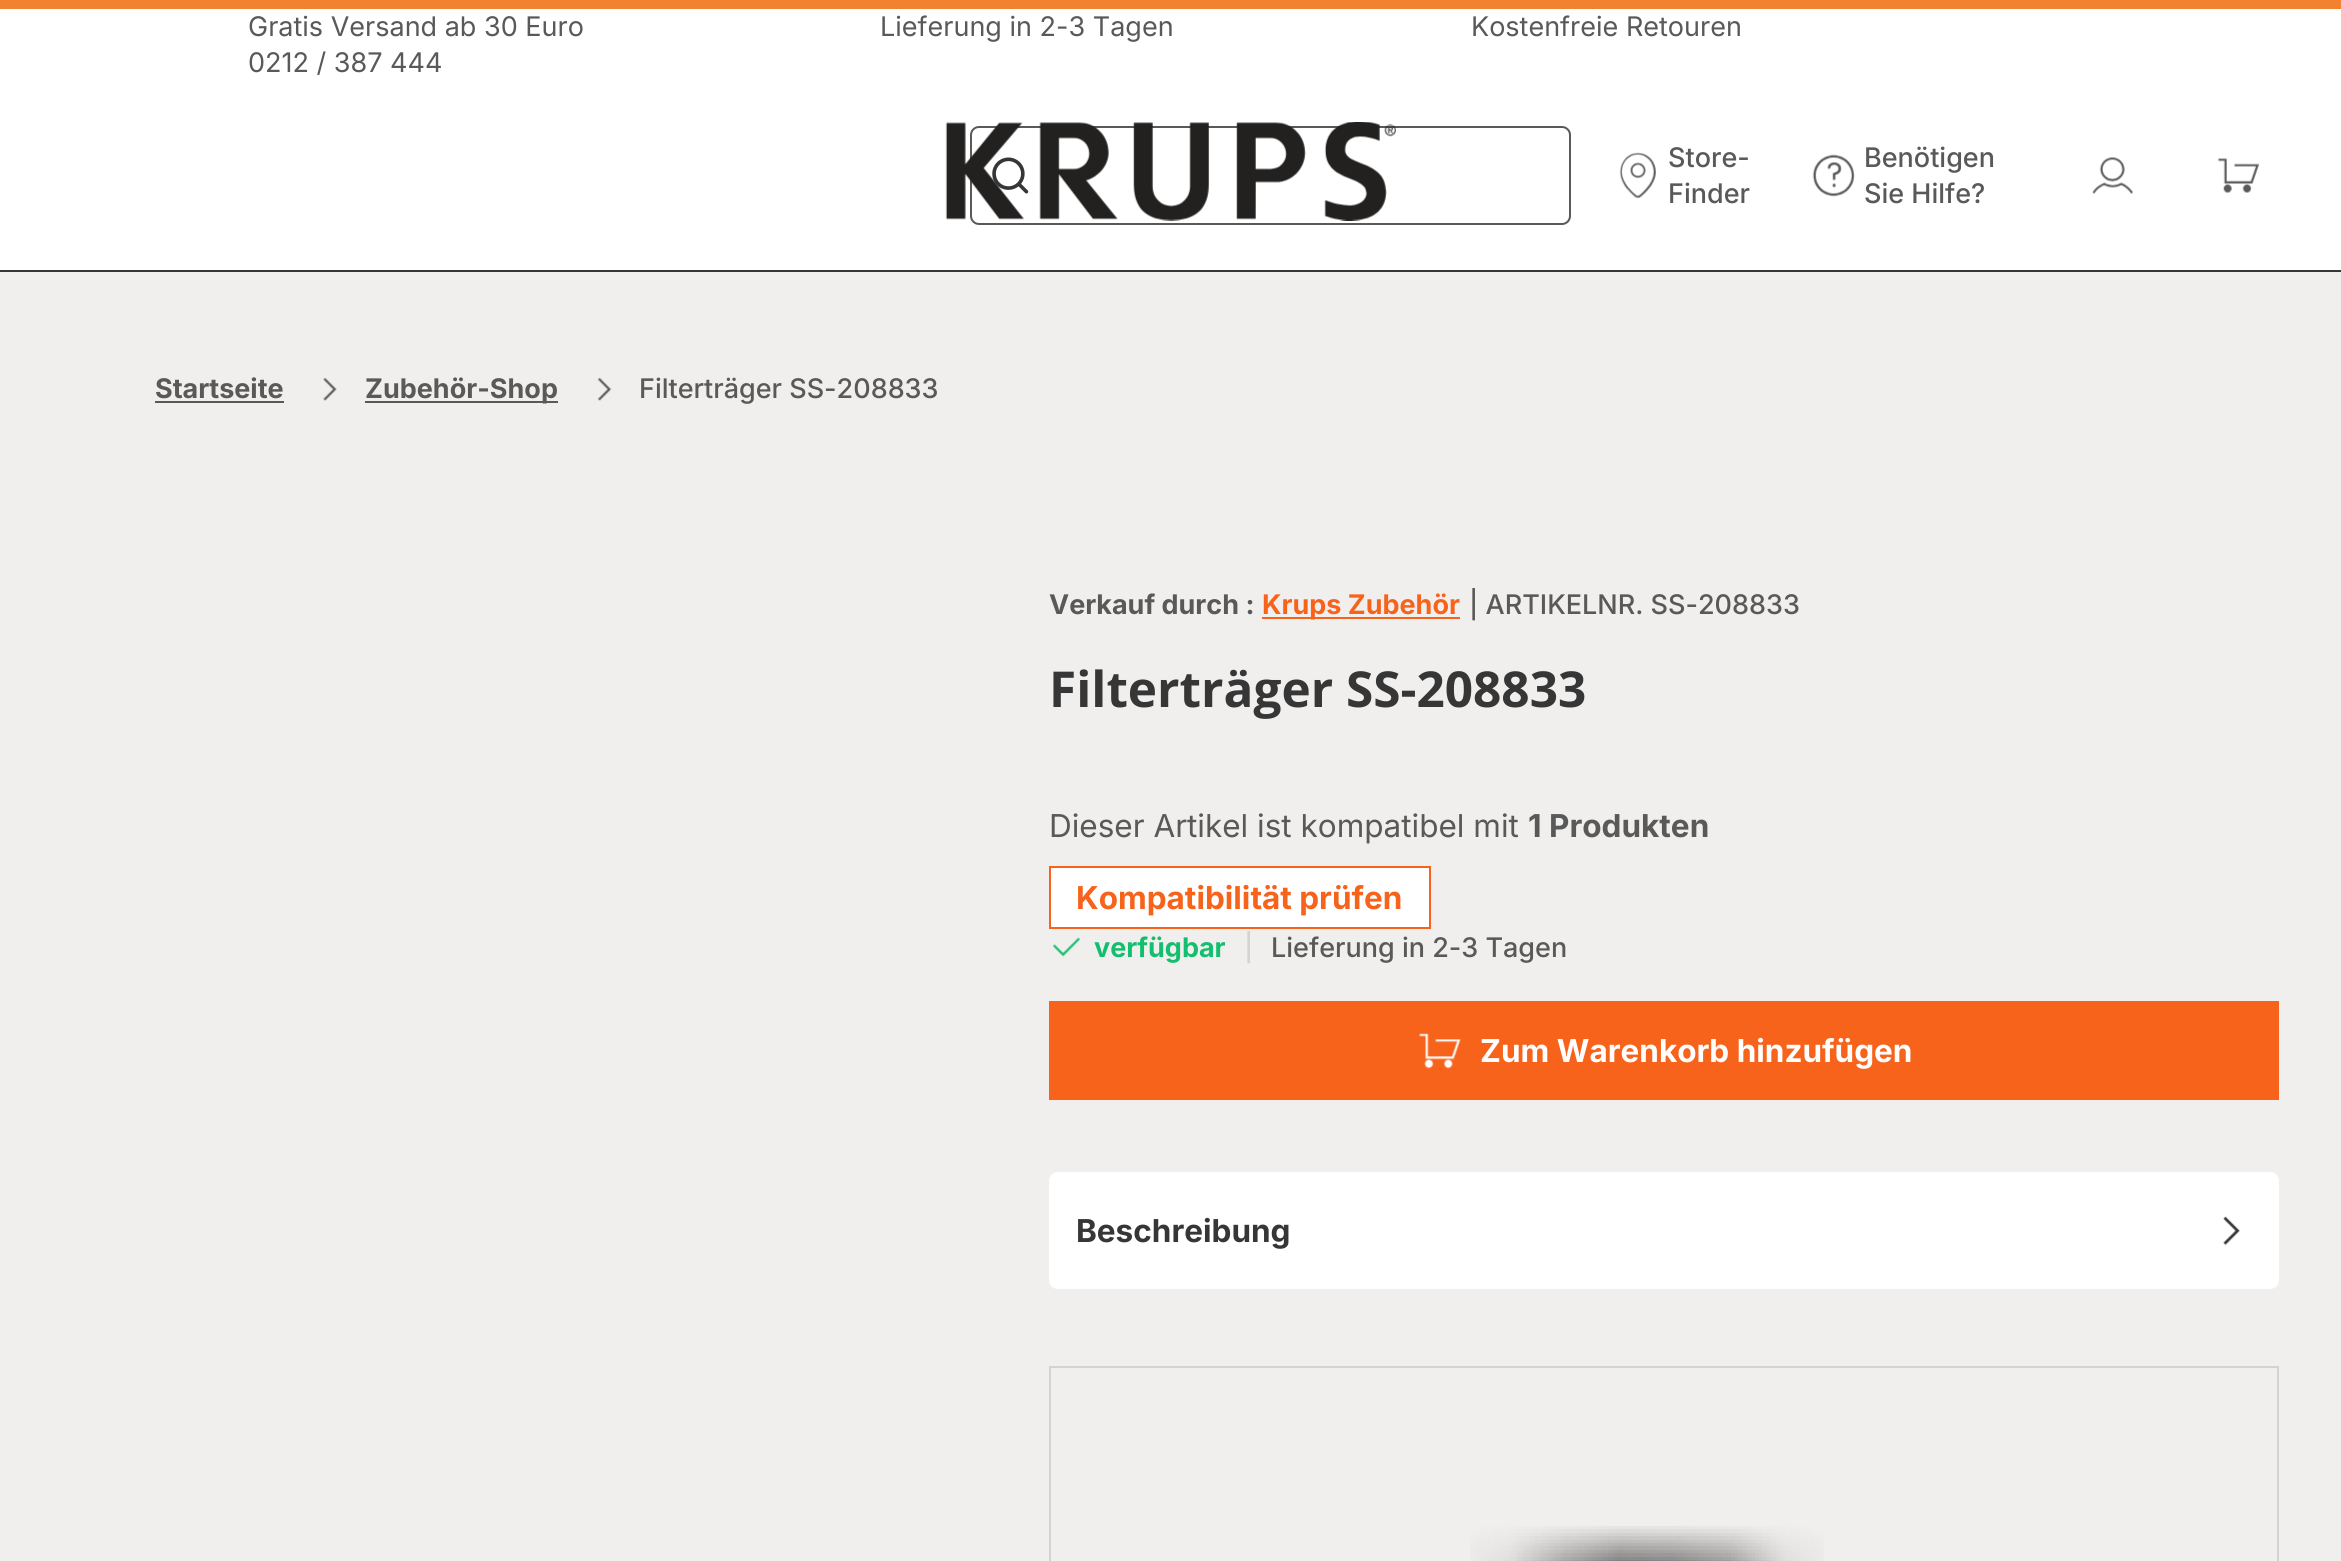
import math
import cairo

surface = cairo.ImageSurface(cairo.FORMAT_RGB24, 2341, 1561)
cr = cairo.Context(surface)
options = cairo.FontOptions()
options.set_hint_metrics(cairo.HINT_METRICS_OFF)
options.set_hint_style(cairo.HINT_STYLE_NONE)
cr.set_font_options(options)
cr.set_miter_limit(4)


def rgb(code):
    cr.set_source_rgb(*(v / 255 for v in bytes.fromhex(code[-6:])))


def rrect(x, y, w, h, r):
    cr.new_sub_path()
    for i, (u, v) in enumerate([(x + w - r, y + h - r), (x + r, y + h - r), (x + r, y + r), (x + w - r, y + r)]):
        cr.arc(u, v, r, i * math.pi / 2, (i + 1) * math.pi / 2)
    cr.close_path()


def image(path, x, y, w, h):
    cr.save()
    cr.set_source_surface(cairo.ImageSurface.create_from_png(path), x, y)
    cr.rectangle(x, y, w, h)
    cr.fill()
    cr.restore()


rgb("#ffffff")
cr.paint()
rgb("#f38230")
cr.rectangle(0, 0, 2341, 9)
cr.fill()
rgb("#363636")
cr.rectangle(0, 270, 2341, 2)
cr.fill()
rrect(971, 127, 599, 97, 8)
rgb("#595959")
cr.stroke()
image("img/2.png", 992, 157, 37, 37)
image("img/1.png", 945, 122, 451, 99)
image("img/3.png", 1619, 152, 37, 47)
image("img/4.png", 1812, 154, 43, 43)
image("img/5.png", 2092, 157, 41, 37)
image("img/6.png", 2217, 158, 43, 35)
rgb("#f1efee")
cr.rectangle(0, 272, 2341, 1289)
cr.fill()
rgb("#595959")
cr.rectangle(155, 401, 129, 2)
cr.fill()
image("img/7.png", 323, 377, 14, 24)
cr.rectangle(365, 401, 193, 2)
cr.fill()
image("img/8.png", 597, 378, 15, 23)
rgb("#f8631b")
cr.rectangle(1262, 617, 198, 2)
cr.fill()
rgb("#ffffff")
cr.rectangle(1050, 867, 380, 61)
cr.fill_preserve()
rgb("#f8631b")
cr.stroke()
image("img/9.png", 1052, 937, 29, 20)
cr.rectangle(1049, 1001, 1230, 99)
cr.fill()
image("img/10.png", 1419, 1033, 42, 36)
rgb("#ffffff")
rrect(1049, 1172, 1230, 117, 9)
cr.fill()
image("img/11.png", 2223, 1216, 17, 30)
cr.rectangle(1050, 1367, 1228, 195)
rgb("#d3d3d3")
cr.stroke()
image("img/12.png", 1470, 1526, 354, 35)
cr.select_font_face("Inter")
cr.set_font_size(27)
rgb("#595959")
for x, y, s in [
    (248, 36, "Gratis Versand ab 30 Euro"),
    (880, 36, "Lieferung in 2-3 Tagen"),
    (1471, 36, "Kostenfreie Retouren"),
    (248, 72, "0212 / 387 444"),
]:
    cr.move_to(x, y)
    cr.show_text(s)
cr.select_font_face("Inter Medium")
for x, y, s in [
    (1668, 167, "Store-"),
    (1668, 203, "Finder"),
    (1864, 167, "Benötigen"),
    (1864, 203, "Sie Hilfe?"),
]:
    cr.move_to(x, y)
    cr.show_text(s)
cr.select_font_face("Inter", cairo.FONT_SLANT_NORMAL, cairo.FONT_WEIGHT_BOLD)
cr.move_to(155, 398)
cr.show_text("Startseite")
cr.move_to(365, 398)
cr.show_text("Zubehör-Shop")
cr.select_font_face("Inter Medium")
cr.move_to(639, 398)
cr.show_text("Filterträger SS-208833")
cr.select_font_face("Inter", cairo.FONT_SLANT_NORMAL, cairo.FONT_WEIGHT_BOLD)
cr.move_to(1049, 614)
cr.show_text("Verkauf durch :")
rgb("#f8631b")
cr.move_to(1262, 614)
cr.show_text("Krups Zubehör")
cr.select_font_face("Inter Medium")
rgb("#595959")
cr.move_to(1469, 614)
cr.show_text("| ARTIKELNR. SS-208833")
cr.select_font_face("Open Sans", cairo.FONT_SLANT_NORMAL, cairo.FONT_WEIGHT_BOLD)
cr.set_font_size(49.5)
rgb("#363636")
cr.move_to(1049, 707)
cr.show_text("Filterträger SS-208833")
cr.select_font_face("Inter")
cr.set_font_size(31.5)
rgb("#595959")
cr.move_to(1049, 837)
cr.show_text("Dieser Artikel ist kompatibel mit")
cr.select_font_face("Inter", cairo.FONT_SLANT_NORMAL, cairo.FONT_WEIGHT_BOLD)
cr.move_to(1528, 837)
cr.show_text("1 Produkten")
rgb("#f8631b")
cr.move_to(1076, 909)
cr.show_text("Kompatibilität prüfen")
cr.set_font_size(27)
rgb("#13bf6e")
cr.move_to(1094, 957)
cr.show_text("verfügbar")
cr.select_font_face("Inter Medium")
rgb("#d3d3d3")
cr.move_to(1244, 957)
cr.show_text("|")
rgb("#595959")
cr.move_to(1271, 957)
cr.show_text("Lieferung in 2-3 Tagen")
cr.select_font_face("Inter", cairo.FONT_SLANT_NORMAL, cairo.FONT_WEIGHT_BOLD)
cr.set_font_size(31.5)
rgb("#ffffff")
cr.move_to(1480, 1062)
cr.show_text("Zum Warenkorb hinzufügen")
rgb("#363636")
cr.move_to(1076, 1242)
cr.show_text("Beschreibung")
surface.write_to_png("page.png")
